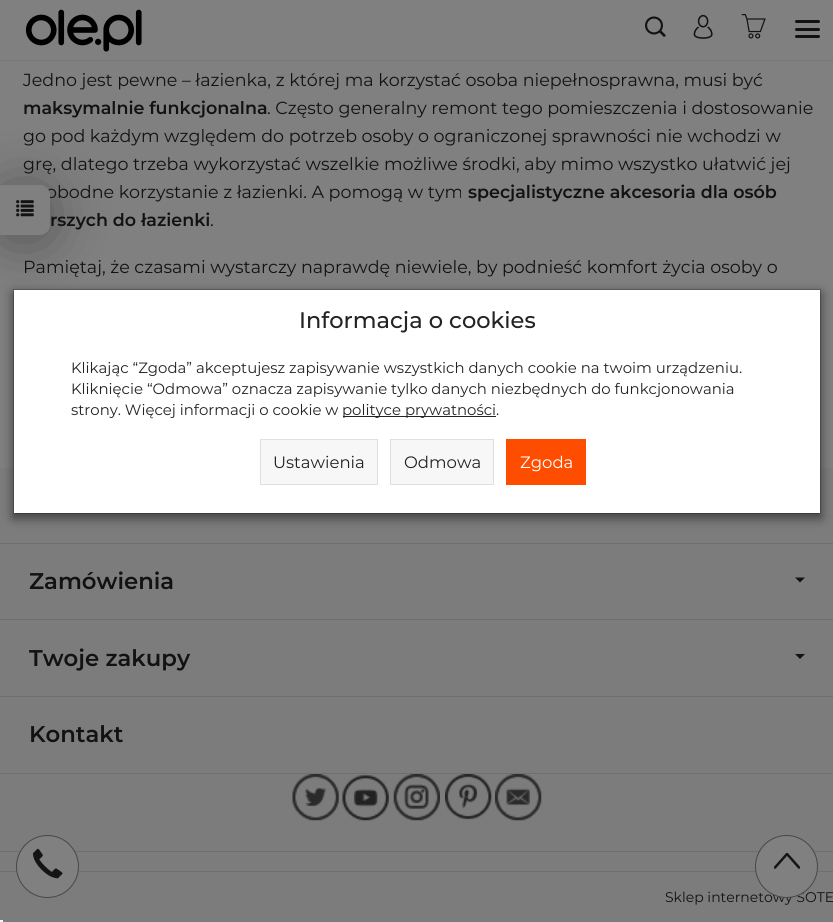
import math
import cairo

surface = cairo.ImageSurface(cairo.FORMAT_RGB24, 833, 922)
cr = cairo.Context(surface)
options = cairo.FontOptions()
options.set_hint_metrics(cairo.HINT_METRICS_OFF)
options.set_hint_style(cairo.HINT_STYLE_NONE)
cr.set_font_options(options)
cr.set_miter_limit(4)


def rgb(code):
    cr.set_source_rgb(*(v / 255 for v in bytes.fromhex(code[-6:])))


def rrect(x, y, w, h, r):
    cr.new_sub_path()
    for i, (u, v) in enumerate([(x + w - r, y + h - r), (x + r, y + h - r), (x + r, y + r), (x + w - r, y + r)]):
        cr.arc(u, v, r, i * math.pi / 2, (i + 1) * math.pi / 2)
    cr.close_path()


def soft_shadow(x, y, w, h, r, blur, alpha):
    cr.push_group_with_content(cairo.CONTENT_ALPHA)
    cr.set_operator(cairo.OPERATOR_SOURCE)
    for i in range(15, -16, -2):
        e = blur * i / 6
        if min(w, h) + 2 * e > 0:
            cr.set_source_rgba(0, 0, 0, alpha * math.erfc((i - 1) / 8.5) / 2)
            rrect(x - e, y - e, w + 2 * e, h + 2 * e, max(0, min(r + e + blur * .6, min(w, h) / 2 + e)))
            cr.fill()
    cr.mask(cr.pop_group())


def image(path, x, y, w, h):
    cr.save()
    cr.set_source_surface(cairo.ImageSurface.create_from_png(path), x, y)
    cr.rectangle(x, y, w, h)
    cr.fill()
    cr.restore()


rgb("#808080")
cr.paint()
rgb("#767676")
cr.rectangle(0, 60, 833, 1)
cr.fill()
image("img/1.png", 25, 9, 117, 43)
image("img/2.png", 645, 16, 21, 21)
image("img/3.png", 693, 14, 20, 25)
image("img/4.png", 741, 14, 25, 25)
rgb("#121212")
rrect(795, 20, 25, 3, 1.5)
cr.fill()
rrect(795, 28, 25, 3, 1.5)
cr.fill()
rrect(795, 35, 25, 3, 1.5)
cr.fill()
rgb("#7c7c7c")
cr.rectangle(0, 468, 833, 454)
cr.fill()
rgb("#000000")
soft_shadow(13, 293, 808, 225, 0, 5.5, 0.5)
soft_shadow(0, 190, 50, 50, 10, 28, 0.35)
rgb("#ffffff")
cr.rectangle(14, 290, 806, 223)
cr.fill()
cr.rectangle(13.5, 289.5, 807, 224)
cr.set_source_rgba(0, 0, 0, 0.2)
cr.set_line_width(1)
cr.stroke()
rgb("#232323")
cr.rectangle(343, 416, 153, 1)
cr.fill()
rgb("#f7f7f7")
cr.rectangle(260.5, 439.5, 117, 45)
cr.fill_preserve()
rgb("#dfdfdf")
cr.stroke()
rgb("#f7f7f7")
cr.rectangle(390.5, 439.5, 103, 45)
cr.fill_preserve()
rgb("#dfdfdf")
cr.stroke()
for x, y, w, h, color in [
    (506, 439, 80, 46, "#ff4d00"),
    (0, 543, 833, 1, "#6f6f6f"),
    (0, 619, 833, 1, "#6f6f6f"),
]:
    rgb(color)
    cr.rectangle(x, y, w, h)
    cr.fill()
rgb("#121212")
cr.new_path()
cr.move_to(795, 577.5)
cr.line_to(805, 577.5)
cr.line_to(800, 582.5)
cr.close_path()
cr.fill()
rgb("#6f6f6f")
cr.rectangle(0, 696, 833, 1)
cr.fill()
rgb("#121212")
cr.new_path()
cr.move_to(795, 654)
cr.line_to(805, 654)
cr.line_to(800, 659)
cr.close_path()
cr.fill()
rgb("#6f6f6f")
cr.rectangle(0, 773, 833, 1)
cr.fill()
cr.rectangle(0, 851, 833, 1)
cr.fill()
image("img/5.png", 292, 774, 47, 47)
image("img/6.png", 342, 775, 47, 46)
image("img/7.png", 393, 774, 47, 47)
image("img/8.png", 445, 774, 47, 46)
image("img/9.png", 495, 774, 47, 47)
cr.rectangle(0, 871, 833, 1)
cr.fill()
rgb("#808080")
cr.arc(47.5, 866.5, 31, 0, 2 * math.pi)
cr.fill_preserve()
rgb("#484848")
cr.stroke()
image("img/11.png", 32, 848, 31, 31)
rgb("#f5f5f5")
cr.rectangle(0, 920, 3, 2)
cr.fill()
cr.select_font_face("Montserrat")
cr.set_font_size(17.5)
rgb("#121212")
cr.move_to(23, 86)
cr.show_text("Jedno jest pewne – łazienka, z której ma korzystać osoba niepełnosprawna, musi być")
cr.select_font_face("Montserrat SemiBold")
cr.move_to(23, 114)
cr.show_text("maksymalnie funkcjonalna")
cr.select_font_face("Montserrat")
for x, y, s in [
    (267, 114, ". Często generalny remont tego pomieszczenia i dostosowanie"),
    (23, 142, "go pod każdym względem do potrzeb osoby o ograniczonej sprawności nie wchodzi w"),
    (23, 170, "grę, dlatego trzeba wykorzystać wszelkie możliwe środki, aby mimo wszystko ułatwić jej"),
    (46, 198, "obodne korzystanie z łazienki. A pomogą w tym"),
]:
    cr.move_to(x, y)
    cr.show_text(s)
cr.select_font_face("Montserrat SemiBold")
cr.move_to(468, 198)
cr.show_text("specjalistyczne akcesoria dla osób")
cr.move_to(50, 226)
cr.show_text("rszych do łazienki")
cr.select_font_face("Montserrat")
cr.move_to(210, 226)
cr.show_text(".")
cr.move_to(23, 273)
cr.show_text("Pamiętaj, że czasami wystarczy naprawdę niewiele, by podnieść komfort życia osoby o")
cr.select_font_face("Montserrat Medium")
cr.set_font_size(22.5)
rgb("#232323")
cr.move_to(299, 328)
cr.show_text("Informacja o cookies")
cr.select_font_face("Montserrat")
cr.set_font_size(14.9)
for x, y, s in [
    (71, 373, "Klikając “Zgoda” akceptujesz zapisywanie wszystkich danych cookie na twoim urządzeniu."),
    (71, 394, "Kliknięcie “Odmowa” oznacza zapisywanie tylko danych niezbędnych do funkcjonowania"),
    (71, 415, "strony. Więcej informacji o cookie w"),
    (342, 415, "polityce prywatności."),
]:
    cr.move_to(x, y)
    cr.show_text(s)
cr.set_font_size(16.5)
cr.move_to(273, 468)
cr.show_text("Ustawienia")
cr.move_to(404, 468)
cr.show_text("Odmowa")
rgb("#ffffff")
cr.move_to(520, 468)
cr.show_text("Zgoda")
cr.select_font_face("Montserrat SemiBold")
cr.set_font_size(22.75)
rgb("#121212")
for x, y, s in [
    (29, 589, "Zamówienia"),
    (29, 666, "Twoje zakupy"),
    (29, 742, "Kontakt"),
]:
    cr.move_to(x, y)
    cr.show_text(s)
cr.select_font_face("Montserrat")
cr.set_font_size(14)
cr.move_to(665, 902)
cr.show_text("Sklep internetowy SOTE")
rgb("#808080")
cr.new_path()
cr.move_to(0, 185)
cr.line_to(40, 185)
cr.curve_to(45.5, 185, 50, 189.5, 50, 195)
cr.line_to(50, 225)
cr.curve_to(50, 230.5, 45.5, 235, 40, 235)
cr.line_to(0, 235)
cr.close_path()
cr.fill()
image("img/10.png", 16, 200, 18, 17)
cr.arc(786.5, 866.5, 31, 0, 2 * math.pi)
cr.fill_preserve()
rgb("#484848")
cr.stroke()
cr.save()
cr.rectangle(774, 853, 26, 16)
cr.clip()
cr.new_path()
cr.move_to(775, 867.5)
cr.line_to(787, 854)
cr.line_to(799, 867.5)
rgb("#151515")
cr.set_line_width(2.5)
cr.set_line_cap(cairo.LINE_CAP_ROUND)
cr.set_line_join(cairo.LINE_JOIN_ROUND)
cr.stroke()
cr.restore()
surface.write_to_png("page.png")
